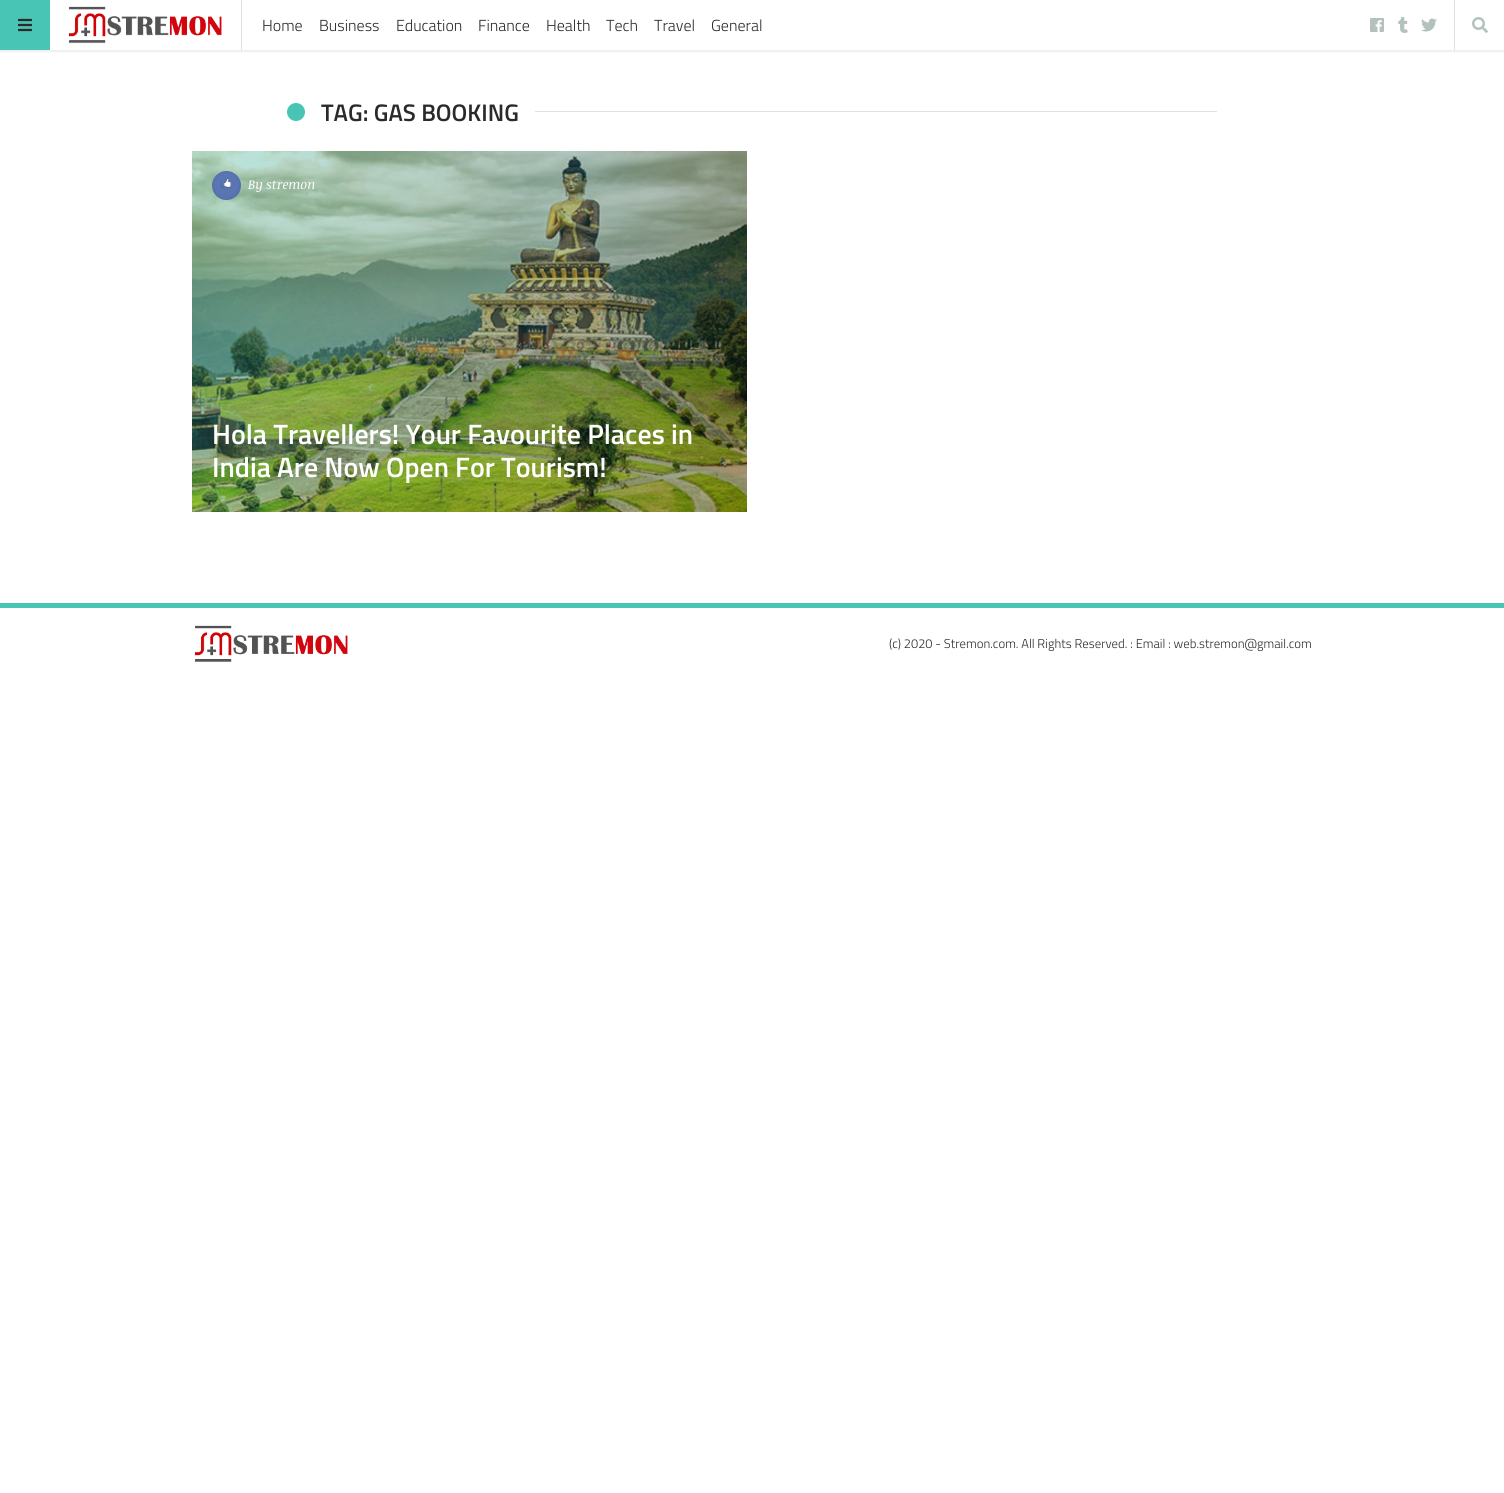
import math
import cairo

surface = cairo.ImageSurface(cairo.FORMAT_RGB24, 1504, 1493)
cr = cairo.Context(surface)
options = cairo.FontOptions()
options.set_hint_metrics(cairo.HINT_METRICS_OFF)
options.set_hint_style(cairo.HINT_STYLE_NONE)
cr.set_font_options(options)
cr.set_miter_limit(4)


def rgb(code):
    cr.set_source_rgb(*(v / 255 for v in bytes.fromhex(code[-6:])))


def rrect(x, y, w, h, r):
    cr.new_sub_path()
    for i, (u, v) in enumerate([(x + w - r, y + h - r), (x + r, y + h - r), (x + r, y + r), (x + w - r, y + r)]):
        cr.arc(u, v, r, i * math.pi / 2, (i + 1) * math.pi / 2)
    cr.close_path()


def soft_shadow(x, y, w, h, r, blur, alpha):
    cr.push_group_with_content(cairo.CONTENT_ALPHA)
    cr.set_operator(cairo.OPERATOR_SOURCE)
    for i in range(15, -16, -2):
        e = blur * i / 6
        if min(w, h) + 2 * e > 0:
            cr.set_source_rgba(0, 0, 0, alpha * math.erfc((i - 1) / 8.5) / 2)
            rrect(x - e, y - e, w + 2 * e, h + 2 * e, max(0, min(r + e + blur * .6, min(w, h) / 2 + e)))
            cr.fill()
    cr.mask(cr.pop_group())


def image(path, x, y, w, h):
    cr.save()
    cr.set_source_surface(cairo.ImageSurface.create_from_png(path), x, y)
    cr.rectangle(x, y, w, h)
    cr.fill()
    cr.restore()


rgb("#ffffff")
cr.paint()
cr.save()
cr.rectangle(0, 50, 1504, 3)
cr.clip()
rgb("#000000")
soft_shadow(-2, -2, 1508, 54, 0, 1, 0.07)
cr.restore()
rgb("#49c5b6")
cr.rectangle(0, 0, 50, 50)
cr.fill()
image("img/1.png", 18, 18, 14, 14)
rgb("#dee2e6")
cr.rectangle(241, 0, 1, 50)
cr.fill()
image("img/2.png", 68, 6, 154, 38)
image("img/3.png", 1370, 18, 14, 14)
image("img/4.png", 1398, 17, 10, 16)
image("img/5.png", 1421, 18, 16, 14)
cr.rectangle(1454, 0, 1, 50)
cr.fill()
image("img/6.png", 1472, 17, 16, 16)
rgb("#49c5b6")
cr.arc(296, 112, 9, 0, 2 * math.pi)
cr.fill()
rgb("#dee2e6")
cr.rectangle(535, 111, 682, 1)
cr.fill()
image("img/7.png", 192, 151, 555, 361)
image("img/8.png", 212, 171, 29, 29)
rgb("#49c5b6")
cr.rectangle(0, 603, 1504, 5)
cr.fill()
image("img/9.png", 194, 625, 154, 37)
cr.select_font_face("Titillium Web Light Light")
cr.set_font_size(16)
rgb("#2a2a2a")
for x, y, s in [
    (262, 31, "Home"),
    (319, 31, "Business"),
    (396, 31, "Education"),
    (478, 31, "Finance"),
    (546, 31, "Health"),
    (606, 31, "Tech"),
    (654, 31, "Travel"),
    (711, 31, "General"),
]:
    cr.move_to(x, y)
    cr.show_text(s)
cr.select_font_face("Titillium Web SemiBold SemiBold")
cr.set_font_size(24)
cr.move_to(321, 121)
cr.show_text("TAG: GAS BOOKING")
cr.select_font_face("Noticia Text", cairo.FONT_SLANT_ITALIC)
cr.set_font_size(12.8)
rgb("#ffffff")
cr.move_to(248, 189)
cr.show_text("By stremon")
cr.select_font_face("Titillium Web SemiBold SemiBold")
cr.set_font_size(28)
cr.move_to(212, 444)
cr.show_text("Hola Travellers! Your Favourite Places in")
cr.move_to(212, 477)
cr.show_text("India Are Now Open For Tourism!")
cr.select_font_face("Titillium Web Light Light")
cr.set_font_size(12.8)
rgb("#2a2a2a")
cr.move_to(889, 648)
cr.show_text("(c) 2020 - Stremon.com. All Rights Reserved. : Email : web.stremon@gmail.com")
surface.write_to_png("page.png")
